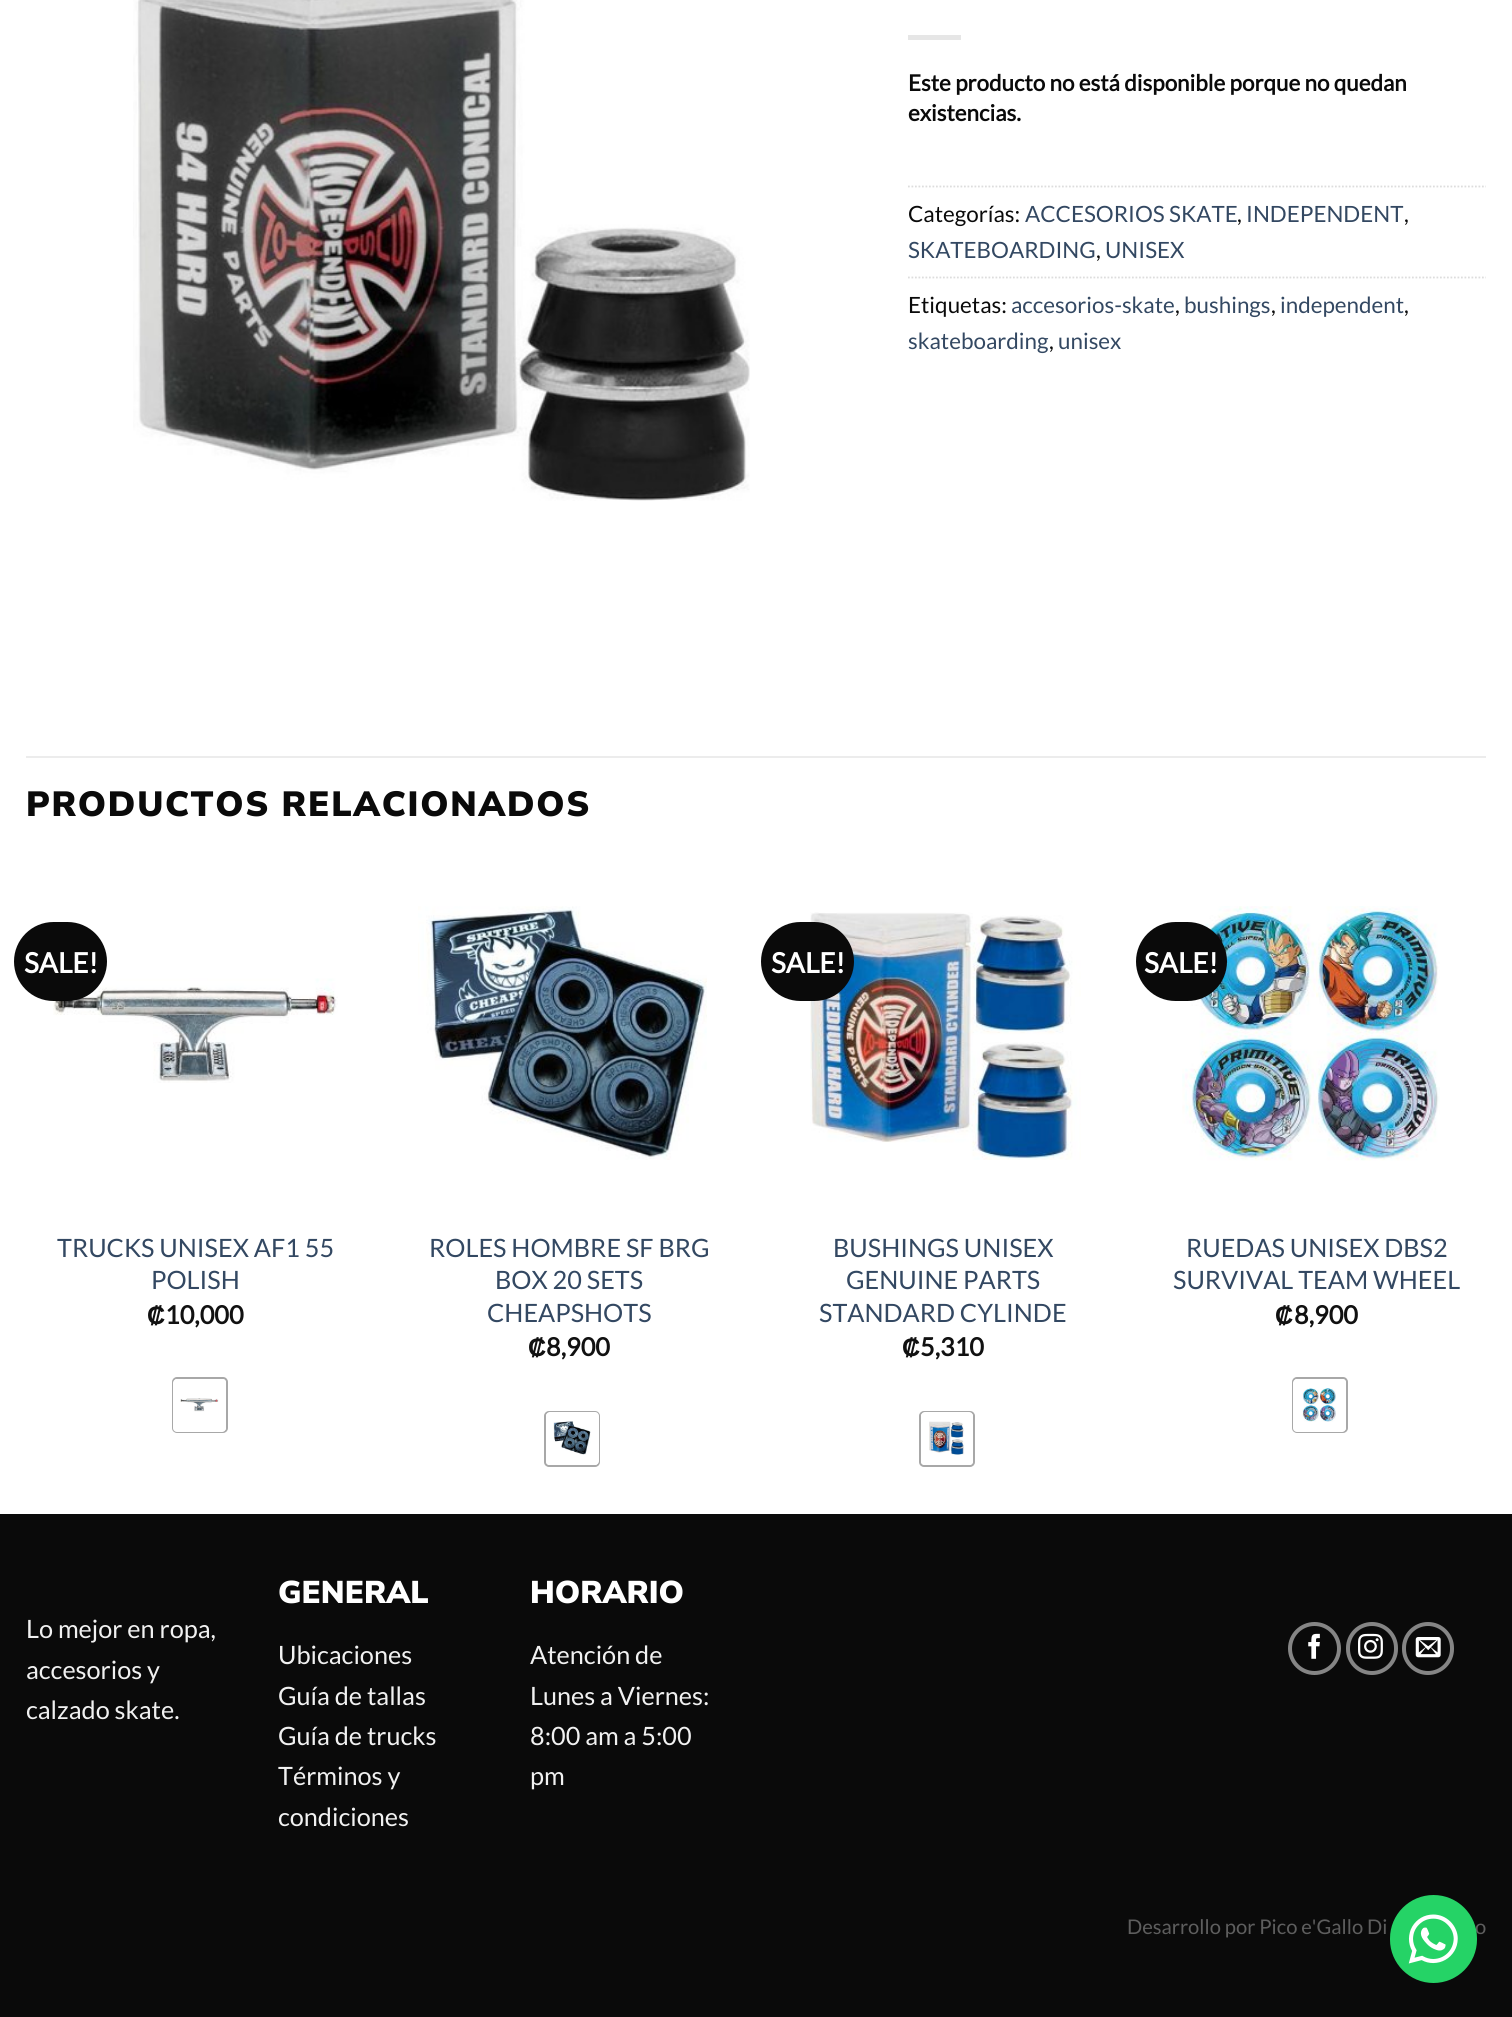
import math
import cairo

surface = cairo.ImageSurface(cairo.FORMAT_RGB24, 1512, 2017)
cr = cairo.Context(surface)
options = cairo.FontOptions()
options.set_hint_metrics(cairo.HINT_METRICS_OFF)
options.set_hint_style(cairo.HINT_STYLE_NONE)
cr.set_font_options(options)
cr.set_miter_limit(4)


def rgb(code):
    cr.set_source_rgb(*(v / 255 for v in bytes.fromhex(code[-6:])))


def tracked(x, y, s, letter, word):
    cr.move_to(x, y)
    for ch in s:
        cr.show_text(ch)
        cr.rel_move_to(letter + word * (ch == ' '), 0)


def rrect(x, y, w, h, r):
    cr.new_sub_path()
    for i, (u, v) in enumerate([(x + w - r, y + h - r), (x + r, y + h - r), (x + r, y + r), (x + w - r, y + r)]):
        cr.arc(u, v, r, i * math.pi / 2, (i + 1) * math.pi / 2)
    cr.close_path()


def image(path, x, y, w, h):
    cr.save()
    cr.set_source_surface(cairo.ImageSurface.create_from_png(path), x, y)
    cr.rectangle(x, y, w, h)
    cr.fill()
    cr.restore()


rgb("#ffffff")
cr.paint()
image("img/1.png", 133, 0, 617, 501)
rgb("#e6e6e6")
cr.rectangle(908, 35, 53, 5)
cr.fill()
cr.new_path()
cr.move_to(908, 186.5)
cr.line_to(1486, 186.5)
rgb("#dddddd")
cr.set_line_width(1.8)
cr.set_dash([1.75, 1.75])
cr.stroke()
cr.new_path()
cr.move_to(908, 277.5)
cr.line_to(1486, 277.5)
cr.stroke()
rgb("#ececec")
cr.rectangle(26, 756, 1460, 2)
cr.fill()
image("img/2.png", 53, 978, 285, 105)
rgb("#0a0a0a")
rrect(14, 922, 93, 79, 39.5)
cr.fill()
rrect(173, 1378, 54, 54, 4)
rgb("#a8a8a8")
cr.set_line_width(2)
cr.set_dash([])
cr.stroke()
rgb("#ffffff")
rrect(173, 1379, 53, 53, 4)
cr.fill()
image("img/3.png", 180, 1398, 39, 14)
image("img/4.png", 418, 906, 289, 254)
rrect(545, 1412, 54, 54, 4)
rgb("#a8a8a8")
cr.stroke()
rgb("#ffffff")
rrect(546, 1412, 53, 53, 4)
cr.fill()
image("img/5.png", 553, 1421, 38, 34)
image("img/6.png", 810, 912, 271, 248)
rgb("#0a0a0a")
rrect(761, 922, 93, 79, 39.5)
cr.fill()
rrect(920, 1412, 54, 54, 4)
rgb("#a8a8a8")
cr.stroke()
rgb("#ffffff")
rrect(921, 1412, 52, 53, 4)
cr.fill()
image("img/7.png", 929, 1421, 36, 34)
image("img/8.png", 1182, 906, 258, 255)
rgb("#0a0a0a")
rrect(1136, 922, 91, 79, 39.5)
cr.fill()
rrect(1293, 1378, 54, 54, 4)
rgb("#a8a8a8")
cr.stroke()
rgb("#ffffff")
rrect(1293, 1379, 53, 53, 4)
cr.fill()
image("img/9.png", 1302, 1388, 34, 34)
rgb("#0a0a0a")
cr.rectangle(0, 1514, 1512, 503)
cr.fill()
cr.arc(1314.5, 1648.5, 24.5, 0, 2 * math.pi)
rgb("#858585")
cr.set_line_width(4)
cr.stroke()
image("img/10.png", 1308, 1633, 12, 26)
rrect(1348, 1624, 48, 49, 24)
cr.stroke()
image("img/11.png", 1358, 1633, 25, 26)
rrect(1404, 1624, 48, 49, 24)
cr.stroke()
image("img/12.png", 1415, 1637, 26, 21)
cr.select_font_face("Lato", cairo.FONT_SLANT_NORMAL, cairo.FONT_WEIGHT_BOLD)
cr.set_font_size(22.4)
rgb("#0a0a0a")
cr.move_to(908, 91)
cr.show_text("Este producto no está disponible porque no quedan")
cr.move_to(908, 121)
cr.show_text("existencias.")
cr.select_font_face("Lato")
cr.move_to(908, 222)
cr.show_text("Categorías:")
rgb("#334862")
cr.move_to(1025, 222)
cr.show_text("ACCESORIOS SKATE")
rgb("#0a0a0a")
cr.move_to(1237, 222)
cr.show_text(",")
rgb("#334862")
cr.move_to(1246, 222)
cr.show_text("INDEPENDENT")
rgb("#0a0a0a")
cr.move_to(1404, 222)
cr.show_text(",")
rgb("#334862")
cr.move_to(908, 258)
cr.show_text("SKATEBOARDING")
rgb("#0a0a0a")
cr.move_to(1096, 258)
cr.show_text(",")
rgb("#334862")
cr.move_to(1105, 258)
cr.show_text("UNISEX")
rgb("#0a0a0a")
cr.move_to(908, 313)
cr.show_text("Etiquetas:")
rgb("#334862")
cr.move_to(1011, 313)
cr.show_text("accesorios-skate")
rgb("#0a0a0a")
cr.move_to(1175, 313)
cr.show_text(",")
rgb("#334862")
cr.move_to(1184, 313)
cr.show_text("bushings")
rgb("#0a0a0a")
cr.move_to(1271, 313)
cr.show_text(",")
rgb("#334862")
cr.move_to(1280, 313)
cr.show_text("independent")
rgb("#0a0a0a")
cr.move_to(1404, 313)
cr.show_text(",")
rgb("#334862")
cr.move_to(908, 349)
cr.show_text("skateboarding")
rgb("#0a0a0a")
cr.move_to(1049, 349)
cr.show_text(",")
rgb("#334862")
cr.move_to(1058, 349)
cr.show_text("unisex")
cr.select_font_face("Nunito Sans Black")
cr.set_font_size(35)
rgb("#0a0a0a")
tracked(26, 816, "PRODUCTOS RELACIONADOS", 1.75, 0)
cr.select_font_face("Lato", cairo.FONT_SLANT_NORMAL, cairo.FONT_WEIGHT_BOLD)
cr.set_font_size(28)
rgb("#ffffff")
cr.move_to(24, 973)
cr.show_text("SALE!")
cr.select_font_face("Lato")
cr.set_font_size(25.25)
rgb("#334862")
cr.move_to(57, 1257)
cr.show_text("TRUCKS UNISEX AF1 55")
cr.move_to(151, 1289)
cr.show_text("POLISH")
cr.select_font_face("Liberation Sans", cairo.FONT_SLANT_NORMAL, cairo.FONT_WEIGHT_BOLD)
rgb("#111111")
cr.move_to(147, 1324)
cr.show_text("₡")
cr.select_font_face("Lato", cairo.FONT_SLANT_NORMAL, cairo.FONT_WEIGHT_BOLD)
cr.move_to(165, 1324)
cr.show_text("10,000")
cr.select_font_face("Lato")
rgb("#334862")
for x, y, s in [
    (429, 1257, "ROLES HOMBRE SF BRG"),
    (495, 1289, "BOX 20 SETS"),
    (487, 1322, "CHEAPSHOTS"),
]:
    cr.move_to(x, y)
    cr.show_text(s)
cr.select_font_face("Liberation Sans", cairo.FONT_SLANT_NORMAL, cairo.FONT_WEIGHT_BOLD)
rgb("#111111")
cr.move_to(528, 1356)
cr.show_text("₡")
cr.select_font_face("Lato", cairo.FONT_SLANT_NORMAL, cairo.FONT_WEIGHT_BOLD)
cr.move_to(546, 1356)
cr.show_text("8,900")
cr.set_font_size(28)
rgb("#ffffff")
cr.move_to(771, 973)
cr.show_text("SALE!")
cr.select_font_face("Lato")
cr.set_font_size(25.25)
rgb("#334862")
for x, y, s in [
    (833, 1257, "BUSHINGS UNISEX"),
    (846, 1289, "GENUINE PARTS"),
    (819, 1322, "STANDARD CYLINDE"),
]:
    cr.move_to(x, y)
    cr.show_text(s)
cr.select_font_face("Liberation Sans", cairo.FONT_SLANT_NORMAL, cairo.FONT_WEIGHT_BOLD)
rgb("#111111")
cr.move_to(902, 1356)
cr.show_text("₡")
cr.select_font_face("Lato", cairo.FONT_SLANT_NORMAL, cairo.FONT_WEIGHT_BOLD)
cr.move_to(920, 1356)
cr.show_text("5,310")
cr.set_font_size(28)
rgb("#ffffff")
cr.move_to(1144, 973)
cr.show_text("SALE!")
cr.select_font_face("Lato")
cr.set_font_size(25.25)
rgb("#334862")
cr.move_to(1186, 1257)
cr.show_text("RUEDAS UNISEX DBS2")
cr.move_to(1173, 1289)
cr.show_text("SURVIVAL TEAM WHEEL")
cr.select_font_face("Liberation Sans", cairo.FONT_SLANT_NORMAL, cairo.FONT_WEIGHT_BOLD)
rgb("#111111")
cr.move_to(1275, 1324)
cr.show_text("₡")
cr.select_font_face("Lato", cairo.FONT_SLANT_NORMAL, cairo.FONT_WEIGHT_BOLD)
cr.move_to(1294, 1324)
cr.show_text("8,900")
cr.select_font_face("Lato")
rgb("#f1f1f1")
for x, y, s in [
    (26, 1638, "Lo mejor en ropa,"),
    (26, 1679, "accesorios y"),
    (26, 1719, "calzado skate."),
]:
    cr.move_to(x, y)
    cr.show_text(s)
cr.select_font_face("Nunito Sans Black")
cr.set_font_size(31.5)
rgb("#ffffff")
cr.move_to(278, 1603)
cr.show_text("GENERAL")
cr.select_font_face("Lato")
cr.set_font_size(25.25)
rgb("#f1f1f1")
for x, y, s in [
    (278, 1664, "Ubicaciones"),
    (278, 1705, "Guía de tallas"),
    (278, 1745, "Guía de trucks"),
    (278, 1785, "Términos y"),
    (278, 1826, "condiciones"),
]:
    cr.move_to(x, y)
    cr.show_text(s)
cr.select_font_face("Nunito Sans Black")
cr.set_font_size(31.5)
rgb("#ffffff")
cr.move_to(530, 1603)
cr.show_text("HORARIO")
cr.select_font_face("Lato")
cr.set_font_size(25.25)
rgb("#f1f1f1")
for x, y, s in [
    (530, 1664, "Atención de"),
    (530, 1705, "Lunes a Viernes:"),
    (530, 1745, "8:00 am a 5:00"),
    (530, 1785, "pm"),
]:
    cr.move_to(x, y)
    cr.show_text(s)
cr.set_font_size(20.2)
rgb("#5e5e5e")
cr.move_to(1127, 1934)
cr.show_text("Desarrollo por Pico e'Gallo Di")
cr.move_to(1475, 1934)
cr.show_text("o")
rgb("#25d366")
rrect(1390, 1895, 87, 88, 43.5)
cr.fill()
image("img/13.png", 1408, 1914, 50, 50)
surface.write_to_png("page.png")
